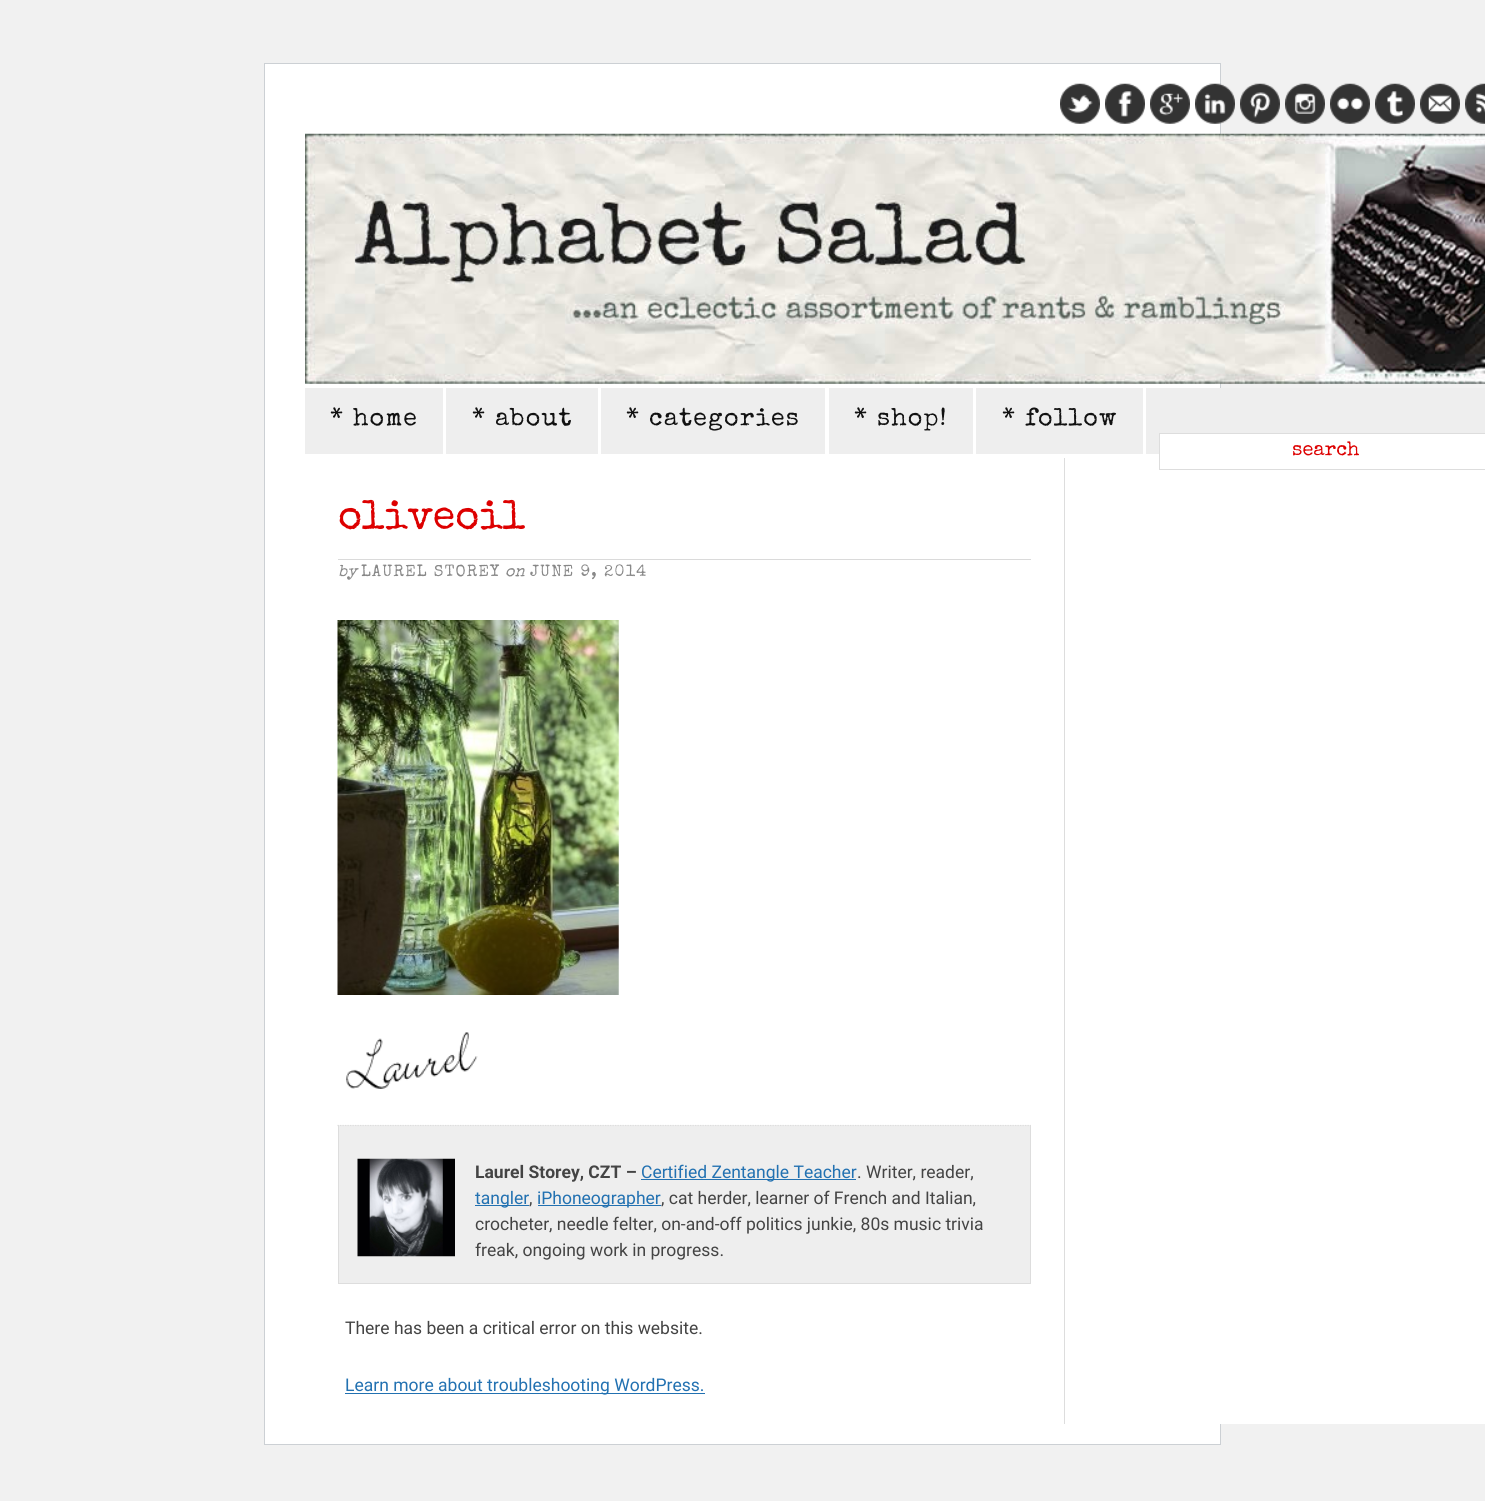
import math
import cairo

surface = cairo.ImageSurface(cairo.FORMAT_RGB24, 1485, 1501)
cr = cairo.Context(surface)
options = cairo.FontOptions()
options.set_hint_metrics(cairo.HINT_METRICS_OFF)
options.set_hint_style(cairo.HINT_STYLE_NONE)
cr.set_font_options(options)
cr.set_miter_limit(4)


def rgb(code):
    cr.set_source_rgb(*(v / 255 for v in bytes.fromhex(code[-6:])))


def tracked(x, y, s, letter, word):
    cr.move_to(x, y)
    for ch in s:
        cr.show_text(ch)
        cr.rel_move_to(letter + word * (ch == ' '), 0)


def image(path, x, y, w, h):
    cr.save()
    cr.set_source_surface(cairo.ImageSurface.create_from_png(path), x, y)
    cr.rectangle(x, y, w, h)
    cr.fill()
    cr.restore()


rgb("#f1f1f1")
cr.paint()
rgb("#ffffff")
cr.rectangle(264.5, 63.5, 956, 1381)
cr.fill_preserve()
rgb("#ccd0d4")
cr.set_line_width(1)
cr.stroke()
image("img/1.png", 1060, 83, 40, 41)
image("img/2.png", 1105, 83, 40, 41)
image("img/3.png", 1150, 83, 40, 41)
image("img/4.png", 1195, 83, 40, 41)
image("img/5.png", 1240, 83, 40, 41)
image("img/6.png", 1285, 83, 40, 41)
image("img/7.png", 1330, 83, 40, 41)
image("img/8.png", 1375, 83, 40, 41)
image("img/9.png", 1420, 83, 40, 41)
image("img/10.png", 1465, 83, 20, 41)
image("img/11.png", 305, 133, 1180, 251)
for x, y, w, h, color in [
    (305, 388, 138, 66, "#eeeeee"),
    (446, 388, 152, 66, "#eeeeee"),
    (601, 388, 224, 66, "#eeeeee"),
    (829, 388, 144, 66, "#eeeeee"),
    (976, 388, 167, 66, "#eeeeee"),
    (1146, 388, 339, 66, "#eeeeee"),
    (1160, 434, 325, 24, "#ffffff"),
    (1220, 458, 265, 966, "#ffffff"),
]:
    rgb(color)
    cr.rectangle(x, y, w, h)
    cr.fill()
cr.rectangle(1159.5, 433.5, 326, 36)
rgb("#dddddd")
cr.stroke()
cr.rectangle(1064, 458, 1, 966)
cr.fill()
rgb("#dadada")
cr.rectangle(338, 559, 693, 1)
cr.fill()
image("img/12.png", 337, 620, 282, 375)
image("img/13.png", 346, 1032, 132, 57)
rgb("#eeeeee")
cr.rectangle(339, 1125, 691, 158)
cr.fill()
cr.new_path()
cr.move_to(337.5, 1125.5)
cr.line_to(1031, 1125.5)
rgb("#dddddd")
cr.set_line_width(1.2)
cr.set_dash([1.25, 1.25])
cr.stroke()
for x, y, w, h, color in [
    (1030, 1125, 1, 159, "#dddddd"),
    (338, 1283, 693, 1, "#dddddd"),
    (338, 1125, 1, 159, "#dddddd"),
]:
    rgb(color)
    cr.rectangle(x, y, w, h)
    cr.fill()
image("img/14.png", 357, 1158, 98, 99)
for x, y, w, h, color in [
    (641, 1179, 215, 1, "#2271b1"),
    (475, 1205, 54, 1, "#2271b1"),
    (538, 1205, 123, 1, "#2271b1"),
    (345, 1393, 360, 1, "#2271b1"),
]:
    rgb(color)
    cr.rectangle(x, y, w, h)
    cr.fill()
cr.select_font_face("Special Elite")
cr.set_font_size(25)
rgb("#111111")
for x, y, s in [
    (330, 425, "* home"),
    (472, 425, "* about"),
    (626, 425, "* categories"),
    (854, 425, "* shop!"),
    (1002, 425, "* follow"),
]:
    tracked(x, y, s, 1.25, 0)
cr.set_font_size(20)
rgb("#dd0000")
cr.move_to(1292, 455)
cr.show_text("search")
cr.set_font_size(41.25)
cr.move_to(338, 528)
cr.show_text("oliveoil")
cr.select_font_face("Special Elite", cairo.FONT_SLANT_ITALIC)
cr.set_font_size(16.25)
rgb("#888888")
cr.move_to(338, 576)
cr.show_text("by")
cr.select_font_face("Special Elite")
tracked(361, 576, "LAUREL STOREY", 1.25, 0)
cr.select_font_face("Special Elite", cairo.FONT_SLANT_ITALIC)
cr.move_to(505, 576)
cr.show_text("on")
cr.select_font_face("Special Elite")
tracked(530, 576, "JUNE 9, 2014", 1.25, 0)
cr.select_font_face("Roboto", cairo.FONT_SLANT_NORMAL, cairo.FONT_WEIGHT_BOLD)
cr.set_font_size(17.5)
rgb("#444444")
cr.move_to(475, 1178)
cr.show_text("Laurel Storey, CZT –")
cr.select_font_face("Roboto")
rgb("#2271b1")
cr.move_to(641, 1178)
cr.show_text("Certified Zentangle Teacher")
rgb("#444444")
cr.move_to(857, 1178)
cr.show_text(". Writer, reader,")
rgb("#2271b1")
cr.move_to(475, 1204)
cr.show_text("tangler")
rgb("#444444")
cr.move_to(529, 1204)
cr.show_text(",")
rgb("#2271b1")
cr.move_to(537, 1204)
cr.show_text("iPhoneographer")
rgb("#444444")
for x, y, s in [
    (661, 1204, ", cat herder, learner of French and Italian,"),
    (475, 1230, "crocheter, needle felter, on-and-off politics junkie, 80s music trivia"),
    (475, 1256, "freak, ongoing work in progress."),
    (345, 1334, "There has been a critical error on this website."),
]:
    cr.move_to(x, y)
    cr.show_text(s)
rgb("#2271b1")
cr.move_to(345, 1391)
cr.show_text("Learn more about troubleshooting WordPress.")
surface.write_to_png("page.png")
